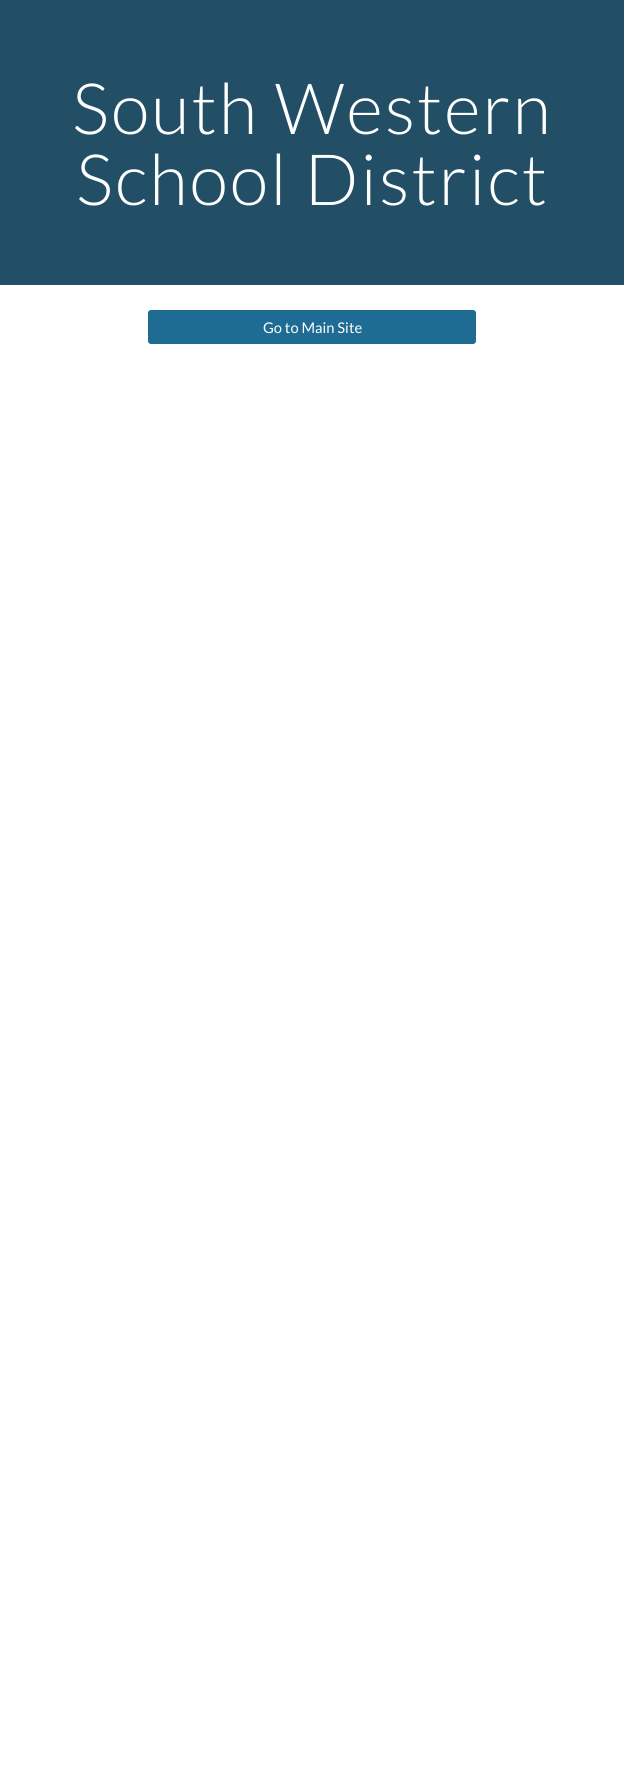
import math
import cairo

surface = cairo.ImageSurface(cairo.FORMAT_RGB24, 624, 1785)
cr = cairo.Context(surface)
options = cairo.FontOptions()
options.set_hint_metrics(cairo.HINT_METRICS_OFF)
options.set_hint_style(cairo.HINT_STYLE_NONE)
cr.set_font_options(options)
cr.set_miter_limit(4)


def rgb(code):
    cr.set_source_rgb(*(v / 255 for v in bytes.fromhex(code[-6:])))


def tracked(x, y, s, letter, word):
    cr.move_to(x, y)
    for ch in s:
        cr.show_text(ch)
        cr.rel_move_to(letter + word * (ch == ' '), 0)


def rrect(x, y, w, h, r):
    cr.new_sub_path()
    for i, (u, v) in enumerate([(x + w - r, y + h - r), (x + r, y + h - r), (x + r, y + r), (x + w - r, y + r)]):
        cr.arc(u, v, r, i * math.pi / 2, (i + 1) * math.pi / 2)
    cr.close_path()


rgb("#ffffff")
cr.paint()
rgb("#224f66")
cr.rectangle(0, 0, 624, 285)
cr.fill()
rgb("#1e6c93")
rrect(148, 310, 328, 34, 3)
cr.fill()
cr.select_font_face("Lato Light")
cr.set_font_size(70.75)
rgb("#ffffff")
tracked(72, 134, "South Western", 2, 0)
tracked(76, 205, "School District", 2, 0)
cr.select_font_face("Lato")
cr.set_font_size(14.75)
cr.move_to(263, 333)
cr.show_text("Go to Main Site")
surface.write_to_png("page.png")
